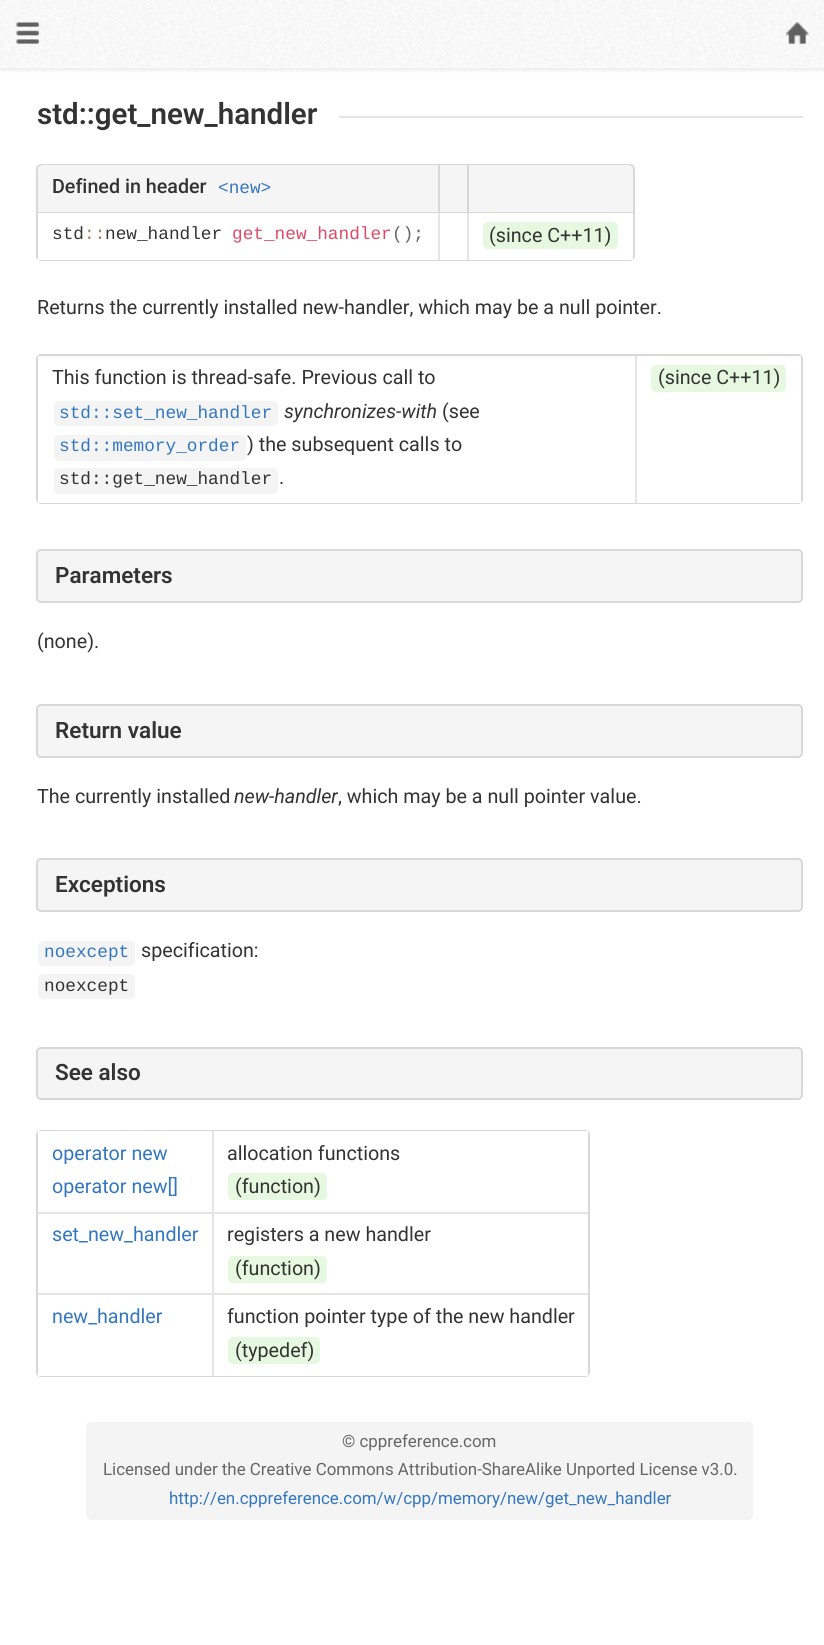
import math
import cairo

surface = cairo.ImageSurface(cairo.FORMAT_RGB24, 824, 1645)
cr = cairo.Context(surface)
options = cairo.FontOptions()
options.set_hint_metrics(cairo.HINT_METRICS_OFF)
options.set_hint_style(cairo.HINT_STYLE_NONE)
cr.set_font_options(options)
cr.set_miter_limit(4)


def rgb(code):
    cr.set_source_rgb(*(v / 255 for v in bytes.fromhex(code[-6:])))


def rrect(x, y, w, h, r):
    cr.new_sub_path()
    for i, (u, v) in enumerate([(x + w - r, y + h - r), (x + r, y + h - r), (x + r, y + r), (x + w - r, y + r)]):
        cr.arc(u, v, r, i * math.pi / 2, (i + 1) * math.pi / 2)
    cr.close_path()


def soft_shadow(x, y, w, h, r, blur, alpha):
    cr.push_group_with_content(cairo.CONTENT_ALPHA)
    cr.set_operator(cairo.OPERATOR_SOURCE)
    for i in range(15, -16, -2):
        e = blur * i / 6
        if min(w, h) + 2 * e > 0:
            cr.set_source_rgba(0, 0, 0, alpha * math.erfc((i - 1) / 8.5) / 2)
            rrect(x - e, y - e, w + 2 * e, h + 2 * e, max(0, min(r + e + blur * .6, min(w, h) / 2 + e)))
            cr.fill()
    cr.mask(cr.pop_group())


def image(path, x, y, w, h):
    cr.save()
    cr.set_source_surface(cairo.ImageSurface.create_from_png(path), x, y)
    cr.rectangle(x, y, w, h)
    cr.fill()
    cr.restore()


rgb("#ffffff")
cr.paint()
cr.save()
cr.set_fill_rule(cairo.FILL_RULE_EVEN_ODD)
cr.new_path()
cr.move_to(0, 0)
cr.line_to(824, 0)
cr.line_to(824, 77)
cr.line_to(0, 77)
cr.close_path()
cr.move_to(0, 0)
cr.line_to(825, 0)
cr.line_to(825, 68)
cr.line_to(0, 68)
cr.close_path()
cr.clip()
rgb("#000000")
soft_shadow(0, 3, 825, 68, 0, 1.5, 0.07)
cr.restore()
image("img/1.png", 0, 0, 824, 68)
image("img/2.png", 16, 22, 23, 22)
image("img/3.png", 786, 22, 23, 22)
rgb("#e5e5e5")
cr.rectangle(339, 116, 464, 2)
cr.fill()
rrect(37, 165, 597, 95, 4)
rgb("#d8d8d8")
cr.stroke()
rgb("#f5f5f5")
cr.new_path()
cr.move_to(43, 165)
cr.line_to(438, 165)
cr.line_to(438, 213)
cr.line_to(38, 213)
cr.line_to(38, 170)
cr.curve_to(38, 167, 40, 165, 43, 165)
cr.close_path()
cr.fill()
for x, y, w, h, color in [
    (38, 212, 429, 1, "#d8d8d8"),
    (440, 165, 27, 47, "#f5f5f5"),
    (438, 165, 2, 48, "#d8d8d8"),
]:
    rgb(color)
    cr.rectangle(x, y, w, h)
    cr.fill()
rgb("#f5f5f5")
cr.new_path()
cr.move_to(467, 165)
cr.line_to(628, 165)
cr.curve_to(631, 165, 633, 167, 633, 170)
cr.line_to(633, 213)
cr.line_to(467, 213)
cr.close_path()
cr.fill()
for x, y, w, h, color in [
    (467, 212, 166, 1, "#d8d8d8"),
    (467, 165, 2, 48, "#d8d8d8"),
    (38, 256, 400, 4, "#ffffff"),
    (440, 259, 27, 1, "#ffffff"),
    (438, 213, 2, 47, "#e5e5e5"),
    (469, 256, 164, 4, "#ffffff"),
    (467, 213, 2, 47, "#e5e5e5"),
]:
    rgb(color)
    cr.rectangle(x, y, w, h)
    cr.fill()
rgb("#e7f8e1")
rrect(483, 222, 135, 27, 5)
cr.fill()
rrect(37, 355, 765, 148, 4)
rgb("#d8d8d8")
cr.stroke()
rgb("#ffffff")
cr.rectangle(38, 356, 597, 147)
cr.fill()
rgb("#f4f4f4")
rrect(54, 401, 224, 25, 5)
cr.fill()
rrect(54, 435, 192, 26, 5)
cr.fill()
rrect(54, 468, 224, 26, 5)
cr.fill()
rgb("#ffffff")
cr.rectangle(637, 356, 164, 147)
cr.fill()
rgb("#e5e5e5")
cr.rectangle(635, 356, 2, 147)
cr.fill()
rgb("#e7f8e1")
rrect(651, 365, 135, 27, 5)
cr.fill()
rgb("#f5f5f5")
rrect(37, 550, 765, 52, 4)
cr.fill_preserve()
rgb("#d8d8d8")
cr.stroke()
rgb("#f5f5f5")
rrect(37, 705, 765, 52, 4)
cr.fill_preserve()
rgb("#d8d8d8")
cr.stroke()
rgb("#f5f5f5")
rrect(37, 859, 765, 52, 4)
cr.fill_preserve()
rgb("#d8d8d8")
cr.stroke()
rgb("#f4f4f4")
rrect(38, 941, 97, 25, 5)
cr.fill()
rrect(38, 974, 97, 25, 5)
cr.fill()
rgb("#f5f5f5")
rrect(37, 1048, 765, 51, 4)
cr.fill_preserve()
rgb("#d8d8d8")
cr.stroke()
rrect(37, 1131, 552, 245, 4)
cr.stroke()
for x, y, w, h, color in [
    (38, 1131, 174, 4, "#ffffff"),
    (38, 1212, 550, 2, "#e5e5e5"),
    (214, 1131, 374, 4, "#ffffff"),
    (212, 1131, 2, 83, "#e5e5e5"),
]:
    rgb(color)
    cr.rectangle(x, y, w, h)
    cr.fill()
rgb("#e7f8e1")
rrect(228, 1173, 99, 27, 5)
cr.fill()
rgb("#e5e5e5")
cr.rectangle(38, 1293, 550, 2)
cr.fill()
cr.rectangle(212, 1214, 2, 162)
cr.fill()
rgb("#e7f8e1")
rrect(228, 1256, 99, 27, 5)
cr.fill()
rgb("#ffffff")
cr.rectangle(38, 1372, 174, 4)
cr.fill()
cr.rectangle(214, 1372, 374, 4)
cr.fill()
rgb("#e7f8e1")
rrect(228, 1337, 92, 27, 5)
cr.fill()
rgb("#f4f4f4")
rrect(86, 1422, 667, 98, 5)
cr.fill()
cr.select_font_face("Roboto SemiBold")
cr.set_font_size(29.5)
rgb("#333333")
cr.move_to(37, 124)
cr.show_text("std::get_new_handler")
cr.select_font_face("Roboto Medium")
cr.set_font_size(19.7)
cr.move_to(52, 193)
cr.show_text("Defined in header")
cr.select_font_face("Liberation Mono")
cr.set_font_size(17.75)
rgb("#3377c0")
cr.move_to(218, 193)
cr.show_text("<new>")
rgb("#333333")
cr.move_to(52, 239)
cr.show_text("std")
rgb("#a67f59")
cr.move_to(84, 239)
cr.show_text("::")
rgb("#333333")
cr.move_to(105, 239)
cr.show_text("new_handler")
rgb("#dd4a68")
cr.move_to(232, 239)
cr.show_text("get_new_handler")
rgb("#666666")
cr.move_to(392, 239)
cr.show_text("();")
cr.select_font_face("Roboto")
cr.set_font_size(19.7)
rgb("#333333")
for x, y, s in [
    (489, 242, "(since C++11)"),
    (37, 314, "Returns the currently installed new-handler, which may be a null pointer."),
    (52, 384, "This function is thread-safe. Previous call to"),
]:
    cr.move_to(x, y)
    cr.show_text(s)
cr.select_font_face("Liberation Mono")
cr.set_font_size(17.75)
rgb("#3377c0")
cr.move_to(59, 418)
cr.show_text("std::set_new_handler")
cr.select_font_face("Roboto", cairo.FONT_SLANT_ITALIC)
cr.set_font_size(19.7)
rgb("#333333")
cr.move_to(284, 418)
cr.show_text("synchronizes-with")
cr.select_font_face("Roboto")
cr.move_to(442, 418)
cr.show_text("(see")
cr.select_font_face("Liberation Mono")
cr.set_font_size(17.75)
rgb("#3377c0")
cr.move_to(59, 451)
cr.show_text("std::memory_order")
cr.select_font_face("Roboto")
cr.set_font_size(19.7)
rgb("#333333")
cr.move_to(247, 451)
cr.show_text(") the subsequent calls to")
cr.select_font_face("Liberation Mono")
cr.set_font_size(17.75)
cr.move_to(59, 484)
cr.show_text("std::get_new_handler")
cr.select_font_face("Roboto")
cr.set_font_size(19.7)
cr.move_to(279, 484)
cr.show_text(".")
cr.move_to(658, 384)
cr.show_text("(since C++11)")
cr.select_font_face("Roboto SemiBold")
cr.set_font_size(22.5)
cr.move_to(55, 583)
cr.show_text("Parameters")
cr.select_font_face("Roboto")
cr.set_font_size(19.7)
cr.move_to(37, 648)
cr.show_text("(none).")
cr.select_font_face("Roboto SemiBold")
cr.set_font_size(22.5)
cr.move_to(55, 738)
cr.show_text("Return value")
cr.select_font_face("Roboto")
cr.set_font_size(19.7)
cr.move_to(37, 803)
cr.show_text("The currently installed")
cr.select_font_face("Roboto", cairo.FONT_SLANT_ITALIC)
cr.move_to(234, 803)
cr.show_text("new-handler")
cr.select_font_face("Roboto")
cr.move_to(338, 803)
cr.show_text(", which may be a null pointer value.")
cr.select_font_face("Roboto SemiBold")
cr.set_font_size(22.5)
cr.move_to(55, 892)
cr.show_text("Exceptions")
cr.select_font_face("Liberation Mono")
cr.set_font_size(17.75)
rgb("#3377c0")
cr.move_to(44, 957)
cr.show_text("noexcept")
cr.select_font_face("Roboto")
cr.set_font_size(19.7)
rgb("#333333")
cr.move_to(141, 957)
cr.show_text("specification:")
cr.select_font_face("Liberation Mono")
cr.set_font_size(17.75)
cr.move_to(44, 991)
cr.show_text("noexcept")
cr.select_font_face("Roboto SemiBold")
cr.set_font_size(22.5)
cr.move_to(55, 1080)
cr.show_text("See also")
cr.select_font_face("Roboto")
cr.set_font_size(19.7)
rgb("#3377c0")
cr.move_to(52, 1160)
cr.show_text("operator new")
cr.move_to(52, 1193)
cr.show_text("operator new[]")
rgb("#333333")
cr.move_to(227, 1160)
cr.show_text("allocation functions")
cr.move_to(235, 1193)
cr.show_text("(function)")
rgb("#3377c0")
cr.move_to(52, 1241)
cr.show_text("set_new_handler")
rgb("#333333")
cr.move_to(227, 1241)
cr.show_text("registers a new handler")
cr.move_to(235, 1275)
cr.show_text("(function)")
rgb("#3377c0")
cr.move_to(52, 1323)
cr.show_text("new_handler")
rgb("#333333")
cr.move_to(227, 1323)
cr.show_text("function pointer type of the new handler")
cr.move_to(235, 1357)
cr.show_text("(typedef)")
cr.set_font_size(16.9)
rgb("#666666")
cr.move_to(342, 1447)
cr.show_text("© cppreference.com")
cr.move_to(103, 1475)
cr.show_text("Licensed under the Creative Commons Attribution-ShareAlike Unported License v3.0.")
rgb("#3377c0")
cr.move_to(169, 1504)
cr.show_text("http://en.cppreference.com/w/cpp/memory/new/get_new_handler")
surface.write_to_png("page.png")
